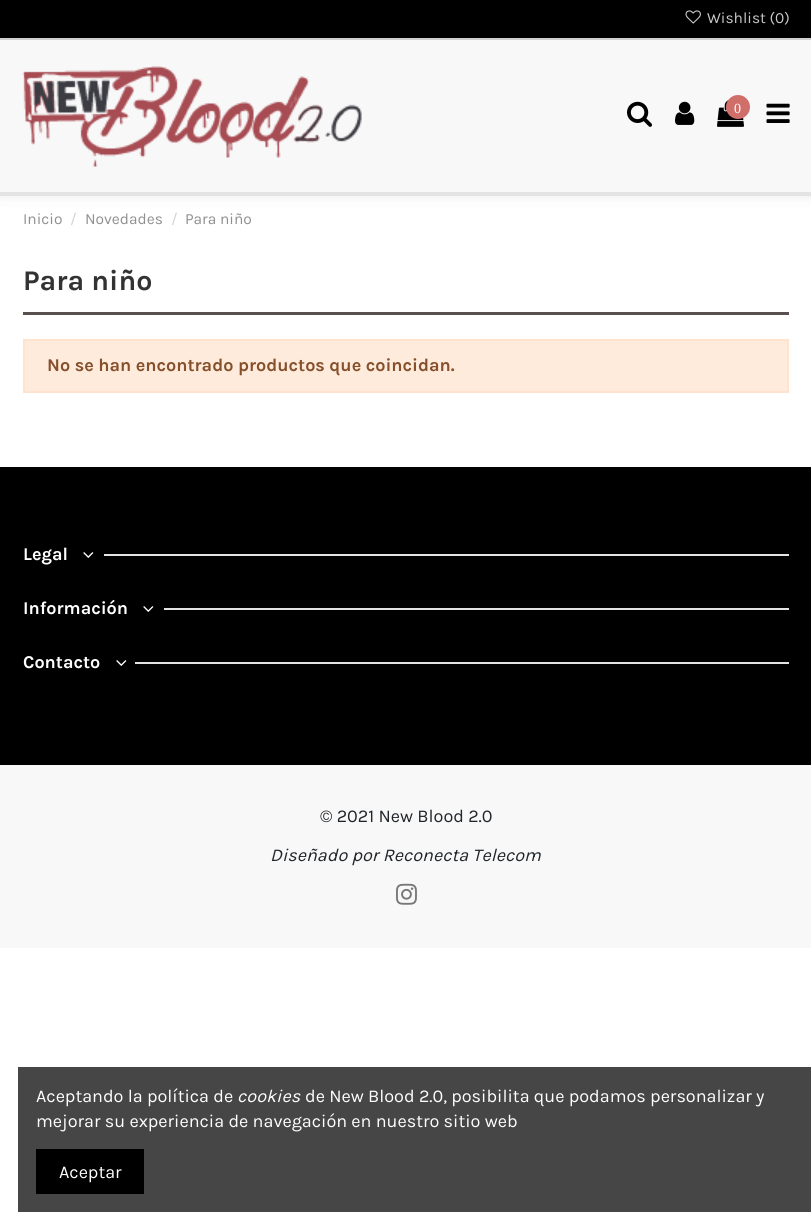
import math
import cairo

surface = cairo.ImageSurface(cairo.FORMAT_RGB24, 811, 1229)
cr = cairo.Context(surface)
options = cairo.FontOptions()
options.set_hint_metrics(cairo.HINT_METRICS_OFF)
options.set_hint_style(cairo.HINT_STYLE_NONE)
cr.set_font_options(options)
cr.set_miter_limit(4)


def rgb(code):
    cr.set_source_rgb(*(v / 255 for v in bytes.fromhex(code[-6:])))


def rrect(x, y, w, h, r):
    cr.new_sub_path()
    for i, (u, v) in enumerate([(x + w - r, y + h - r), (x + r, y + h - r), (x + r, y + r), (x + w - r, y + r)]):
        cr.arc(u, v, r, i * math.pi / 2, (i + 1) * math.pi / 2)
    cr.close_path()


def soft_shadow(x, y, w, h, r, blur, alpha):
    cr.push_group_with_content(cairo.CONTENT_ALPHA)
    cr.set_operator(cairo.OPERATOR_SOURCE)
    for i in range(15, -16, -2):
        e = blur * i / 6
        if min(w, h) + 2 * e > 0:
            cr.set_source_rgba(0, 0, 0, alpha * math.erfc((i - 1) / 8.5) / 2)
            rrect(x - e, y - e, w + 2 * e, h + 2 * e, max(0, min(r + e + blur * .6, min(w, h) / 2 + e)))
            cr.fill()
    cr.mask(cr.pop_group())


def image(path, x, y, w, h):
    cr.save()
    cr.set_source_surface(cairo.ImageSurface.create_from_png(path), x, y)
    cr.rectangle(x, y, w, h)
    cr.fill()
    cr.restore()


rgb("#ffffff")
cr.paint()
rgb("#3d3939")
soft_shadow(0, -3, 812, 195, 0, 8, 0.17)
for x, y, w, h, color in [
    (0, 40, 811, 152, "#f8f8f8"),
    (0, 192, 811, 4, "#e3e3e3"),
    (0, 0, 811, 38, "#000000"),
    (0, 38, 811, 2, "#cfcfcf"),
]:
    rgb(color)
    cr.rectangle(x, y, w, h)
    cr.fill()
image("img/1.png", 685, 10, 16, 14)
image("img/2.png", 22, 66, 340, 101)
image("img/3.png", 627, 101, 25, 26)
image("img/4.png", 675, 101, 20, 24)
image("img/5.png", 717, 99, 27, 28)
rgb("#d06e6a")
cr.arc(738, 107, 12, 0, 2 * math.pi)
cr.fill()
image("img/6.png", 766, 103, 24, 20)
rgb("#595050")
cr.rectangle(23, 312, 766, 3)
cr.fill()
rgb("#ffebdc")
cr.rectangle(24, 340, 764, 52)
cr.fill_preserve()
rgb("#ffe3cf")
cr.stroke()
rgb("#000000")
cr.rectangle(0, 467, 811, 298)
cr.fill()
image("img/7.png", 83, 552, 11, 6)
rgb("#e3e3e3")
cr.rectangle(104, 554, 685, 2)
cr.fill()
image("img/7.png", 143, 606, 11, 6)
cr.rectangle(164, 608, 625, 2)
cr.fill()
image("img/7.png", 116, 660, 11, 6)
cr.rectangle(135, 662, 654, 2)
cr.fill()
rgb("#f8f8f8")
cr.rectangle(0, 765, 811, 183)
cr.fill()
image("img/8.png", 396, 883, 21, 22)
rgb("#464646")
cr.rectangle(18, 1067, 793, 145)
cr.fill()
rgb("#000000")
cr.rectangle(36, 1149, 108, 45)
cr.fill()
cr.select_font_face("Karla")
cr.set_font_size(15.5)
rgb("#c9c9c9")
cr.move_to(707, 23)
cr.show_text("Wishlist (0)")
cr.select_font_face("Liberation Serif")
cr.set_font_size(14)
rgb("#ffffff")
cr.move_to(734, 113)
cr.show_text("0")
cr.select_font_face("Karla")
cr.set_font_size(15.5)
rgb("#8f8f8f")
cr.move_to(23, 224)
cr.show_text("Inicio")
rgb("#d2d2d2")
cr.move_to(70, 224)
cr.show_text("/")
rgb("#8f8f8f")
cr.move_to(85, 224)
cr.show_text("Novedades")
rgb("#d2d2d2")
cr.move_to(171, 224)
cr.show_text("/")
rgb("#8f8f8f")
cr.move_to(185, 224)
cr.show_text("Para niño")
cr.select_font_face("Karla", cairo.FONT_SLANT_NORMAL, cairo.FONT_WEIGHT_BOLD)
cr.set_font_size(28.5)
rgb("#333333")
cr.move_to(23, 290)
cr.show_text("Para niño")
cr.set_font_size(18)
rgb("#85502b")
cr.move_to(47, 371)
cr.show_text("No se han encontrado productos que coincidan.")
rgb("#ffffff")
for x, y, s in [
    (23, 560, "Legal"),
    (23, 614, "Información"),
    (23, 668, "Contacto"),
]:
    cr.move_to(x, y)
    cr.show_text(s)
cr.select_font_face("Karla")
rgb("#212529")
cr.move_to(320, 822)
cr.show_text("© 2021 New Blood 2.0")
cr.select_font_face("Karla", cairo.FONT_SLANT_ITALIC)
cr.move_to(270, 861)
cr.show_text("Diseñado por Reconecta Telecom")
cr.select_font_face("Karla")
rgb("#ffffff")
cr.move_to(36, 1102)
cr.show_text("Aceptando la política de")
cr.select_font_face("Karla", cairo.FONT_SLANT_ITALIC)
cr.move_to(237, 1102)
cr.show_text("cookies")
cr.select_font_face("Karla")
for x, y, s in [
    (305, 1102, "de New Blood 2.0, posibilita que podamos personalizar y"),
    (36, 1127, "mejorar su experiencia de navegación en nuestro sitio web"),
    (59, 1178, "Aceptar"),
]:
    cr.move_to(x, y)
    cr.show_text(s)
surface.write_to_png("page.png")
